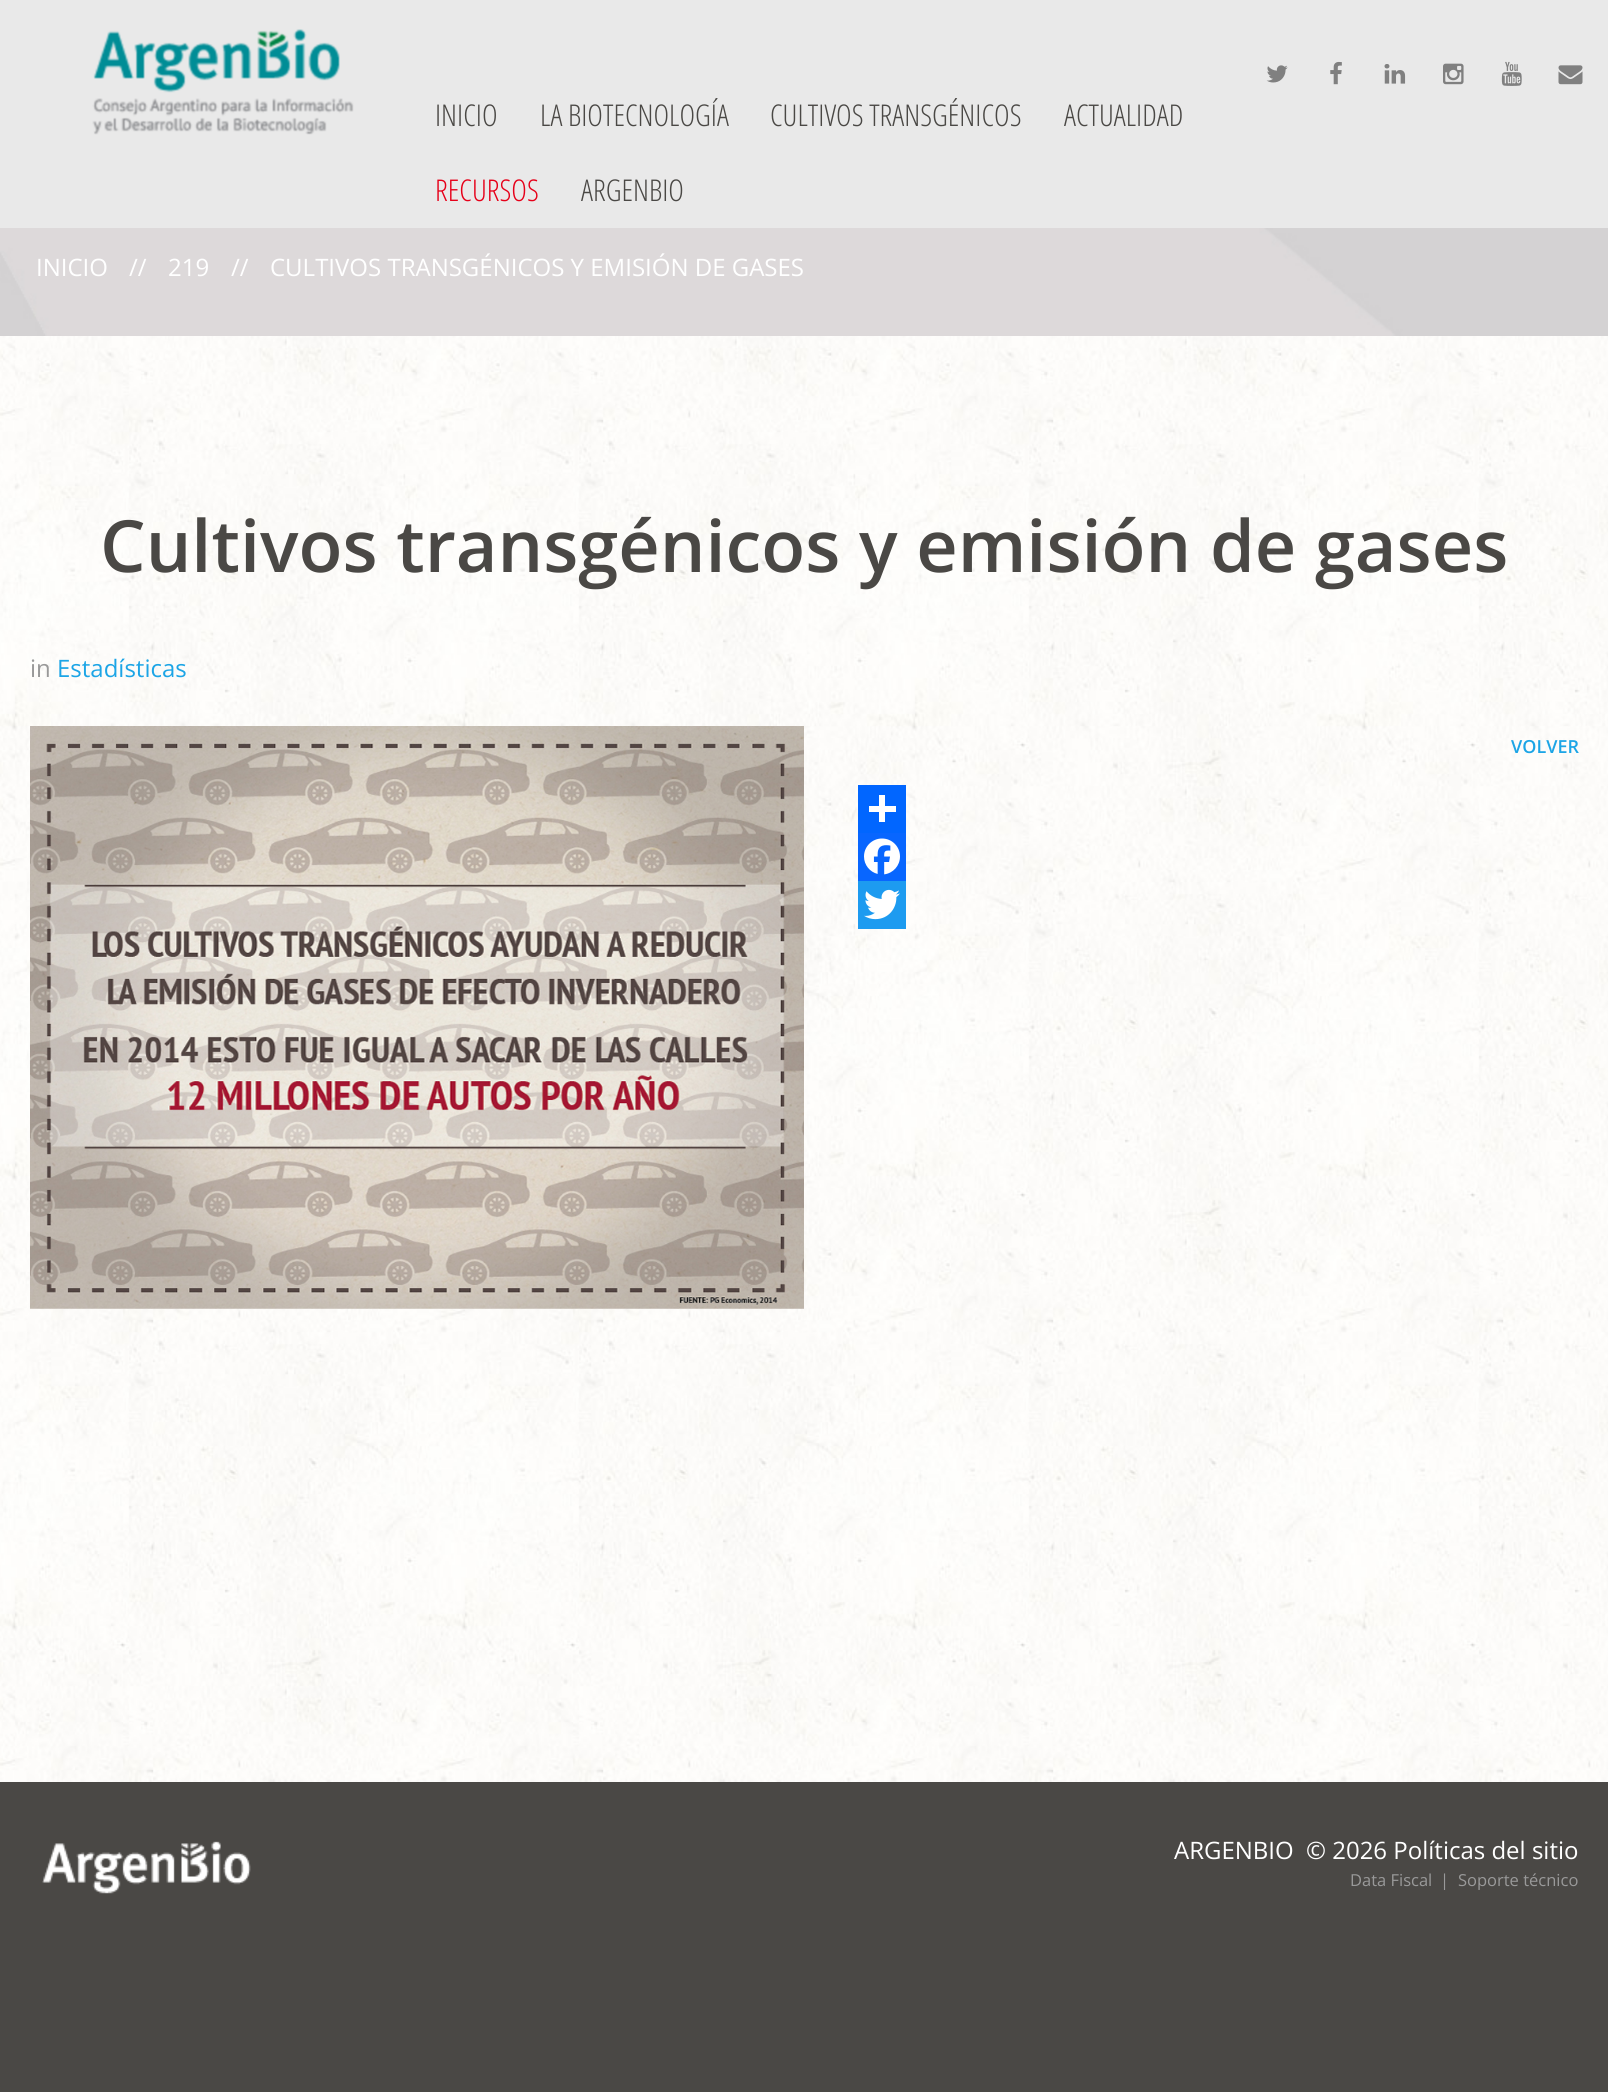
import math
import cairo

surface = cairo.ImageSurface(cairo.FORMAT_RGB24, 1608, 2092)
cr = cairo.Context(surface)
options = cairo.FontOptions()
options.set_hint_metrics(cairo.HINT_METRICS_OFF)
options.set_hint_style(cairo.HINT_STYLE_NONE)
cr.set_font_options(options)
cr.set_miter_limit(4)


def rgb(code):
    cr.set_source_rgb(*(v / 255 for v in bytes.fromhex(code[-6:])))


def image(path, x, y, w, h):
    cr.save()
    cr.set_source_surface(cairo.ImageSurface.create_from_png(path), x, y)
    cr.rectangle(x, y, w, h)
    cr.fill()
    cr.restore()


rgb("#ffffff")
cr.paint()
image("img/1.png", 0, 336, 1608, 1446)
rgb("#e9e9e9")
cr.rectangle(0, 0, 1608, 228)
cr.fill()
image("img/2.png", 92, 29, 262, 106)
image("img/3.png", 1266, 65, 22, 18)
image("img/4.png", 1330, 61, 12, 24)
image("img/5.png", 1384, 64, 22, 20)
image("img/6.png", 1443, 63, 21, 22)
image("img/7.png", 1501, 61, 21, 25)
image("img/8.png", 1558, 65, 25, 20)
image("img/9.png", 0, 228, 1608, 108)
image("img/10.png", 30, 726, 774, 583)
for x, y, w, h, color in [
    (858, 785, 48, 48, "#0166ff"),
    (879, 795, 6, 27, "#ffffff"),
    (869, 806, 27, 6, "#ffffff"),
    (858, 833, 48, 48, "#0866ff"),
]:
    rgb(color)
    cr.rectangle(x, y, w, h)
    cr.fill()
image("img/11.png", 864, 838, 36, 37)
rgb("#1d9bf0")
cr.rectangle(858, 881, 48, 48)
cr.fill()
image("img/12.png", 864, 889, 36, 31)
rgb("#4a4845")
cr.rectangle(0, 1782, 1608, 310)
cr.fill()
image("img/13.png", 42, 1841, 209, 53)
cr.select_font_face("Open Sans Condensed Light")
cr.set_font_size(30)
for x, y, s in [
    (435, 126, "INICIO"),
    (540, 126, "LA BIOTECNOLOGÍA"),
    (770, 126, "CULTIVOS TRANSGÉNICOS"),
    (1064, 126, "ACTUALIDAD"),
]:
    cr.move_to(x, y)
    cr.show_text(s)
rgb("#e60019")
cr.move_to(435, 201)
cr.show_text("RECURSOS")
rgb("#4a4845")
cr.move_to(581, 201)
cr.show_text("ARGENBIO")
cr.select_font_face("Open Sans")
cr.set_font_size(24)
rgb("#ffffff")
for x, y, s in [
    (36, 276, "INICIO"),
    (129, 276, "//"),
    (168, 276, "219"),
    (231, 276, "//"),
    (270, 276, "CULTIVOS TRANSGÉNICOS Y EMISIÓN DE GASES"),
]:
    cr.move_to(x, y)
    cr.show_text(s)
cr.select_font_face("Open Sans SemiBold")
cr.set_font_size(72)
rgb("#4a4845")
cr.move_to(100, 572)
cr.show_text("Cultivos transgénicos y emisión de gases")
cr.select_font_face("Open Sans")
cr.set_font_size(24)
rgb("#999999")
cr.move_to(30, 677)
cr.show_text("in")
rgb("#1ca5e6")
cr.move_to(57, 677)
cr.show_text("Estadísticas")
cr.select_font_face("Open Sans SemiBold")
cr.set_font_size(18)
cr.move_to(1511, 753)
cr.show_text("VOLVER")
cr.select_font_face("Open Sans")
cr.set_font_size(24)
rgb("#ffffff")
cr.move_to(1174, 1859)
cr.show_text("ARGENBIO")
cr.move_to(1306, 1859)
cr.show_text("© 2026 Políticas del sitio")
cr.set_font_size(16.5)
rgb("#999999")
for x, y, s in [
    (1350, 1886, "Data Fiscal"),
    (1440, 1886, "|"),
    (1458, 1886, "Soporte técnico"),
]:
    cr.move_to(x, y)
    cr.show_text(s)
surface.write_to_png("page.png")
